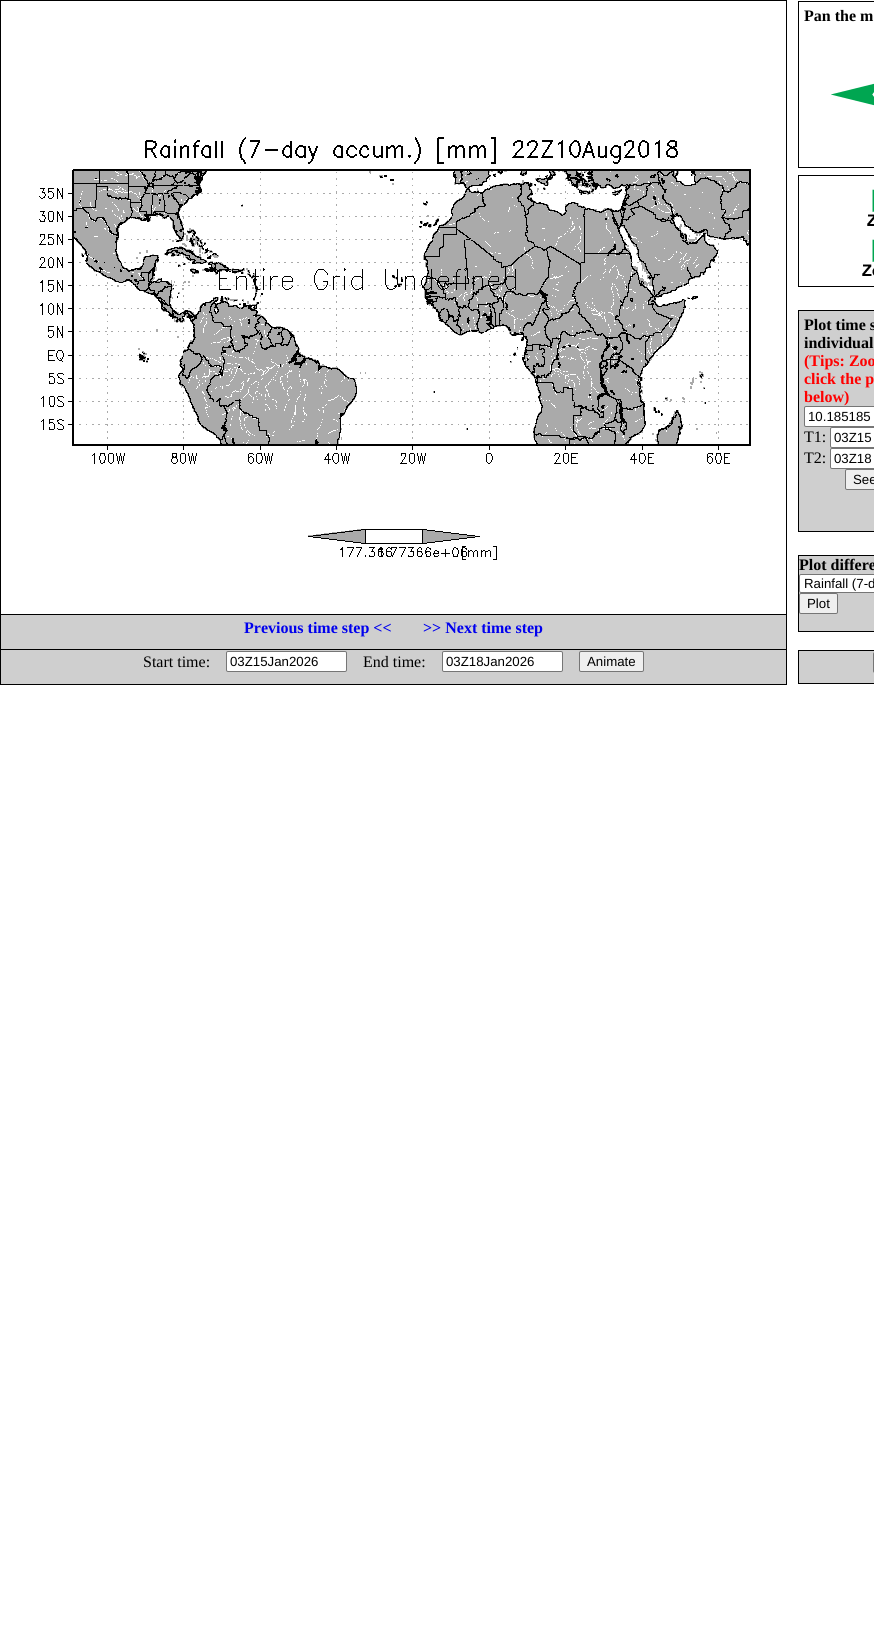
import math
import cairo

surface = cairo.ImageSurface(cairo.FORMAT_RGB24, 874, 1650)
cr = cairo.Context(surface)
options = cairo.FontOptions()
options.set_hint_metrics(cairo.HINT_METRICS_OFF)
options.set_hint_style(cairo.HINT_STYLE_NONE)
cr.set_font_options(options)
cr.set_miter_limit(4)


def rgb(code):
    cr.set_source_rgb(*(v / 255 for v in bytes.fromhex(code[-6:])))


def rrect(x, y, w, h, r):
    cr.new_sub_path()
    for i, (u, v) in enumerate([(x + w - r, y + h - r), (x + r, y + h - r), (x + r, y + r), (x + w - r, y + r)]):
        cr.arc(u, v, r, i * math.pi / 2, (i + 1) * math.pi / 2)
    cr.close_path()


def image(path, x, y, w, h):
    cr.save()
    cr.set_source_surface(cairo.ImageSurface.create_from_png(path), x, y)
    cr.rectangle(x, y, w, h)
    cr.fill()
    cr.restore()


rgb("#ffffff")
cr.paint()
cr.rectangle(0.5, 0.5, 786, 684)
rgb("#000000")
cr.set_line_width(1)
cr.stroke()
image("img/1.png", 39, 137, 712, 423)
cr.rectangle(798.5, 1.5, 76, 166)
cr.stroke()
image("img/2.png", 831, 83, 43, 23)
cr.rectangle(798.5, 175.5, 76, 111)
cr.stroke()
image("img/3.png", 867, 189, 7, 37)
image("img/4.png", 862, 239, 12, 37)
rgb("#cfcfcf")
cr.rectangle(798.5, 310.5, 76, 221)
cr.fill_preserve()
rgb("#000000")
cr.stroke()
rgb("#ffffff")
rrect(804.5, 406.5, 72, 20, 1.5)
cr.fill_preserve()
rgb("#767676")
cr.stroke()
rgb("#ffffff")
rrect(830.5, 427.5, 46, 20, 1.5)
cr.fill_preserve()
rgb("#767676")
cr.stroke()
rgb("#ffffff")
rrect(830.5, 448.5, 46, 20, 1.5)
cr.fill_preserve()
rgb("#767676")
cr.stroke()
rgb("#efefef")
rrect(845.5, 469.5, 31, 20, 1.5)
cr.fill_preserve()
rgb("#767676")
cr.stroke()
rgb("#cfcfcf")
cr.rectangle(798.5, 555.5, 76, 76)
cr.fill_preserve()
rgb("#000000")
cr.stroke()
rgb("#ffffff")
rrect(799.5, 574.5, 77, 18, 1.5)
cr.fill_preserve()
rgb("#767676")
cr.stroke()
rgb("#efefef")
rrect(799.5, 593.5, 38, 20, 1.5)
cr.fill_preserve()
rgb("#767676")
cr.stroke()
rgb("#cfcfcf")
cr.rectangle(0.5, 614.5, 786, 35)
cr.fill_preserve()
rgb("#000000")
cr.stroke()
rgb("#cfcfcf")
cr.rectangle(1, 650, 785, 34)
cr.fill()
rgb("#ffffff")
rrect(226.5, 651.5, 120, 20, 1.5)
cr.fill_preserve()
rgb("#767676")
cr.stroke()
rgb("#ffffff")
rrect(442.5, 651.5, 120, 20, 1.5)
cr.fill_preserve()
rgb("#767676")
cr.stroke()
rgb("#efefef")
rrect(579.5, 651.5, 64, 20, 1.5)
cr.fill_preserve()
rgb("#767676")
cr.stroke()
rgb("#cfcfcf")
cr.rectangle(798.5, 650.5, 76, 33)
cr.fill_preserve()
rgb("#000000")
cr.stroke()
rrect(873.5, 652.5, 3, 20, 1.5)
rgb("#767676")
cr.stroke()
cr.select_font_face("Liberation Serif", cairo.FONT_SLANT_NORMAL, cairo.FONT_WEIGHT_BOLD)
cr.set_font_size(16)
rgb("#000000")
for x, y, s in [
    (804, 21, "Pan the m"),
    (804, 330, "Plot time s"),
    (804, 348, "individual"),
]:
    cr.move_to(x, y)
    cr.show_text(s)
rgb("#ff0000")
for x, y, s in [
    (804, 366, "(Tips: Zoo"),
    (804, 384, "click the p"),
    (804, 402, "below)"),
]:
    cr.move_to(x, y)
    cr.show_text(s)
cr.select_font_face("Liberation Sans")
cr.set_font_size(13.25)
rgb("#000000")
cr.move_to(808, 421)
cr.show_text("10.185185")
cr.select_font_face("Liberation Serif")
cr.set_font_size(16)
cr.move_to(804, 442)
cr.show_text("T1:")
cr.select_font_face("Liberation Sans")
cr.set_font_size(13.25)
cr.move_to(834, 442)
cr.show_text("03Z15")
cr.select_font_face("Liberation Serif")
cr.set_font_size(16)
cr.move_to(804, 463)
cr.show_text("T2:")
cr.select_font_face("Liberation Sans")
cr.set_font_size(13.25)
cr.move_to(834, 463)
cr.show_text("03Z18")
cr.move_to(853, 484)
cr.show_text("See")
cr.select_font_face("Liberation Serif", cairo.FONT_SLANT_NORMAL, cairo.FONT_WEIGHT_BOLD)
cr.set_font_size(16)
cr.move_to(799, 570)
cr.show_text("Plot differe")
cr.select_font_face("Liberation Sans")
cr.set_font_size(13.25)
cr.move_to(804, 588)
cr.show_text("Rainfall (7-d")
cr.move_to(807, 608)
cr.show_text("Plot")
cr.select_font_face("Liberation Serif", cairo.FONT_SLANT_NORMAL, cairo.FONT_WEIGHT_BOLD)
cr.set_font_size(16)
rgb("#0000ee")
cr.move_to(244, 633)
cr.show_text("Previous time step <<")
cr.move_to(423, 633)
cr.show_text(">> Next time step")
cr.select_font_face("Liberation Serif")
rgb("#000000")
cr.move_to(143, 667)
cr.show_text("Start time:")
cr.select_font_face("Liberation Sans")
cr.set_font_size(13.25)
cr.move_to(230, 666)
cr.show_text("03Z15Jan2026")
cr.select_font_face("Liberation Serif")
cr.set_font_size(16)
cr.move_to(363, 667)
cr.show_text("End time:")
cr.select_font_face("Liberation Sans")
cr.set_font_size(13.25)
cr.move_to(446, 666)
cr.show_text("03Z18Jan2026")
cr.move_to(587, 666)
cr.show_text("Animate")
surface.write_to_png("page.png")
